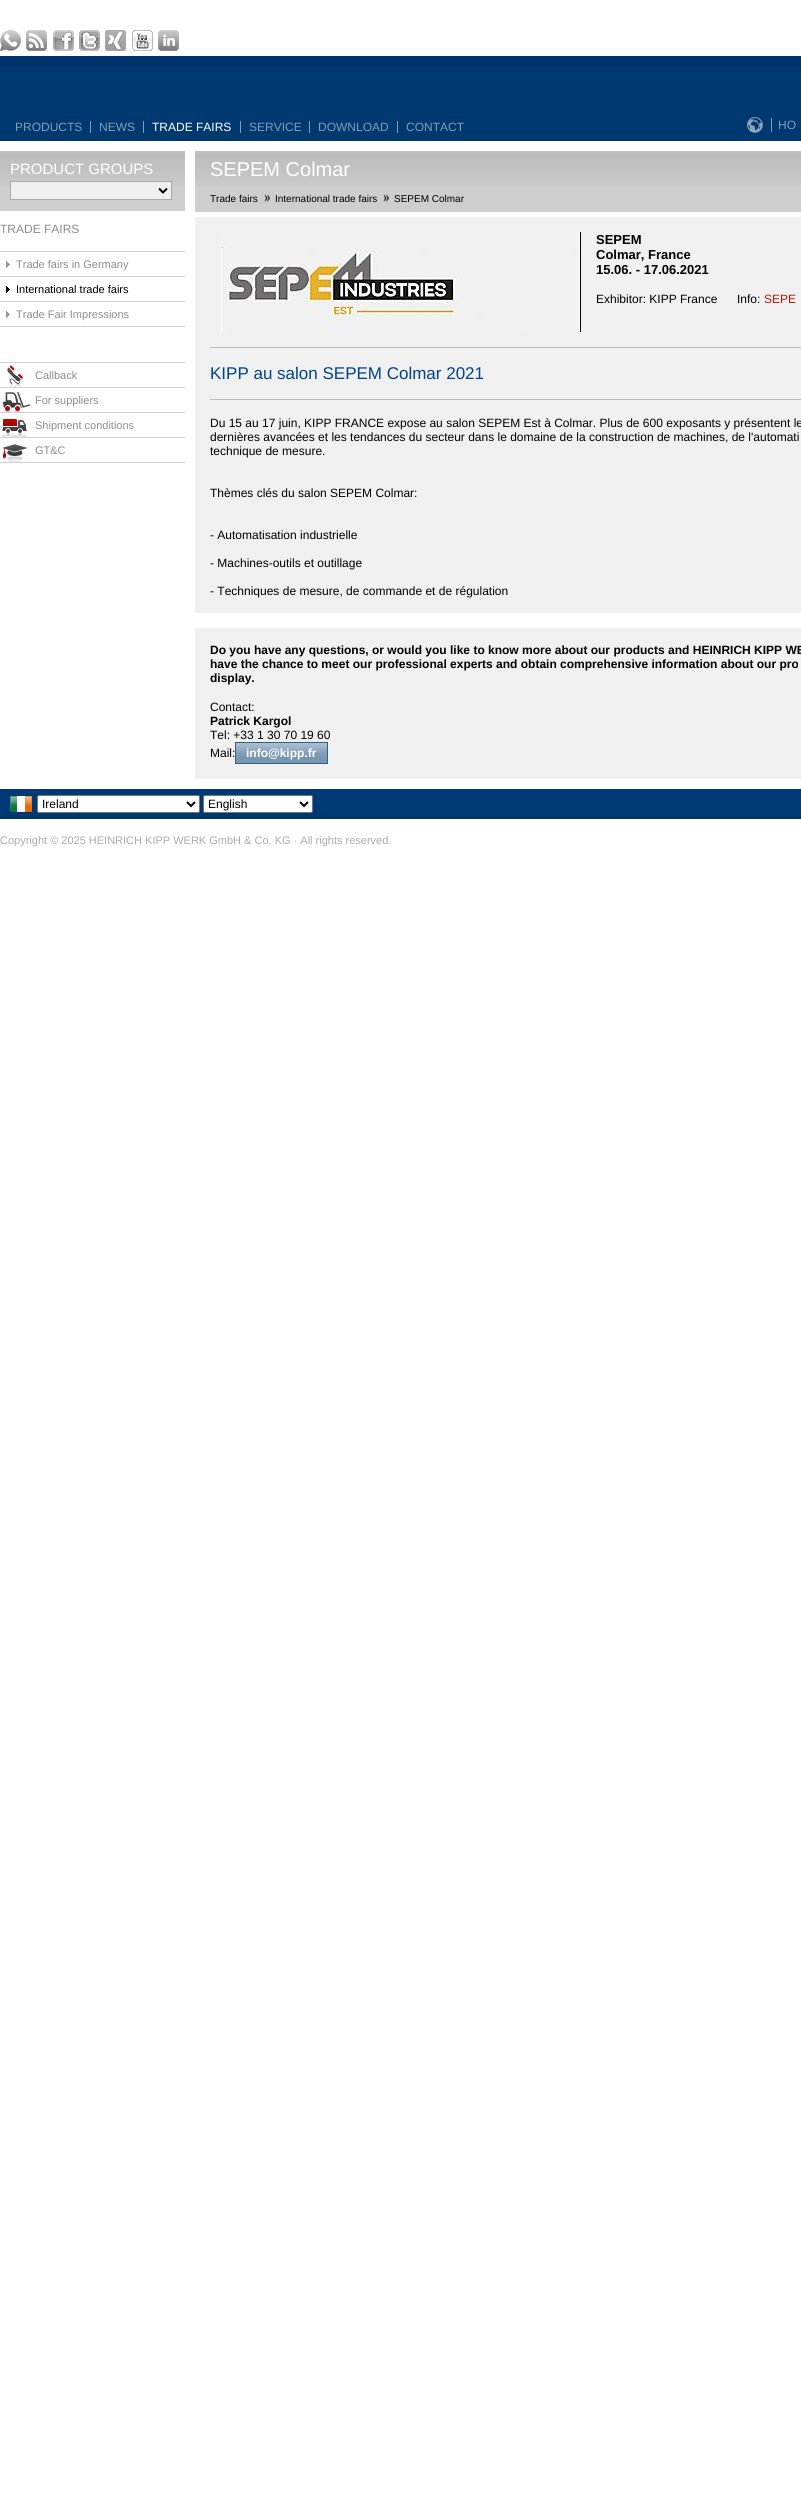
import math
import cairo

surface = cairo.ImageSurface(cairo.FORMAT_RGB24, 801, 2506)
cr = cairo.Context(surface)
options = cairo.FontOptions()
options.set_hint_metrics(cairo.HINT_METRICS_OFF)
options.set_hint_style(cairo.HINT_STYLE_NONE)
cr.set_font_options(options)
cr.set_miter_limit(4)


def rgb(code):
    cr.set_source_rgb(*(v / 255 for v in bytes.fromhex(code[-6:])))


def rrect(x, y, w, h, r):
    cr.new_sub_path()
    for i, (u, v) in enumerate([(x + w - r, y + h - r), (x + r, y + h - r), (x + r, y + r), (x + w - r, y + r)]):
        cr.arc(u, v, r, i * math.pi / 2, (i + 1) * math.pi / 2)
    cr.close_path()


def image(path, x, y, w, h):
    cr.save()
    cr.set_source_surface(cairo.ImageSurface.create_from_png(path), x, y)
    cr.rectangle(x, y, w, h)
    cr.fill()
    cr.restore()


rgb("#ffffff")
cr.paint()
image("img/1.png", 0, 30, 21, 21)
image("img/2.png", 26, 30, 21, 21)
image("img/3.png", 53, 30, 21, 21)
image("img/4.png", 79, 30, 21, 21)
image("img/5.png", 105, 30, 21, 21)
image("img/6.png", 132, 30, 21, 21)
image("img/7.png", 158, 30, 21, 21)
for x, y, w, h, color in [
    (0, 67, 801, 74, "#003970"),
    (0, 56, 801, 11, "#01346c"),
    (90, 121, 1, 12, "#809cba"),
    (143, 121, 1, 12, "#809cba"),
    (240, 121, 1, 12, "#809cba"),
    (309, 121, 1, 12, "#809cba"),
    (397, 121, 1, 12, "#809cba"),
]:
    rgb(color)
    cr.rectangle(x, y, w, h)
    cr.fill()
image("img/8.png", 747, 117, 16, 16)
cr.rectangle(771, 118, 1, 14)
cr.fill()
rgb("#cecece")
cr.rectangle(0, 186, 185, 25)
cr.fill()
image("img/9.png", 0, 151, 185, 35)
rgb("#efefef")
cr.rectangle(10.5, 181.5, 161, 18)
cr.fill_preserve()
rgb("#aaaaaa")
cr.set_line_width(1)
cr.stroke()
cr.new_path()
cr.move_to(159, 188.5)
cr.line_to(163, 192.5)
cr.line_to(167, 188.5)
rgb("#000000")
cr.set_line_width(2)
cr.stroke()
rgb("#d1d1d1")
cr.rectangle(0, 326, 185, 1)
cr.fill()
cr.rectangle(0, 251, 185, 1)
cr.fill()
image("img/10.png", 6, 261, 4, 7)
cr.rectangle(0, 276, 185, 1)
cr.fill()
image("img/11.png", 6, 286, 4, 7)
cr.rectangle(0, 301, 185, 1)
cr.fill()
image("img/10.png", 6, 311, 4, 7)
cr.rectangle(0, 362, 185, 1)
cr.fill()
cr.rectangle(0, 387, 185, 1)
cr.fill()
image("img/12.png", 1, 365, 23, 22)
cr.rectangle(0, 412, 185, 1)
cr.fill()
image("img/13.png", 1, 391, 30, 21)
cr.rectangle(0, 437, 185, 1)
cr.fill()
image("img/14.png", 0, 417, 30, 20)
cr.rectangle(0, 462, 185, 1)
cr.fill()
image("img/15.png", 0, 443, 30, 19)
rgb("#f0f0f0")
cr.rectangle(195, 217, 606, 562)
cr.fill()
rgb("#cecece")
cr.rectangle(195, 186, 606, 26)
cr.fill()
image("img/16.png", 195, 151, 606, 35)
image("img/17.png", 264, 194, 6, 8)
image("img/17.png", 383, 194, 6, 8)
image("img/18.png", 218, 232, 363, 100)
for x, y, w, h, color in [
    (210, 347, 591, 1, "#bbbbbb"),
    (210, 399, 591, 1, "#bbbbbb"),
    (195, 613, 606, 15, "#ffffff"),
    (236, 757, 91, 6, "#7796b0"),
]:
    rgb(color)
    cr.rectangle(x, y, w, h)
    cr.fill()
image("img/19.png", 236, 743, 91, 14)
cr.rectangle(235.5, 742.5, 92, 21)
rgb("#336180")
cr.set_line_width(1)
cr.stroke()
image("img/20.png", 0, 789, 801, 30)
image("img/21.png", 10, 796, 22, 16)
rgb("#ffffff")
rrect(37.5, 795.5, 162, 17, 1.5)
cr.fill_preserve()
rgb("#767676")
cr.stroke()
cr.new_path()
cr.move_to(187, 802)
cr.line_to(191, 806)
cr.line_to(195, 802)
rgb("#000000")
cr.set_line_width(2)
cr.stroke()
rgb("#ffffff")
rrect(203.5, 795.5, 109, 17, 1.5)
cr.fill_preserve()
rgb("#767676")
cr.set_line_width(1)
cr.stroke()
cr.new_path()
cr.move_to(300, 802)
cr.line_to(304, 806)
cr.line_to(308, 802)
rgb("#000000")
cr.set_line_width(2)
cr.stroke()
cr.select_font_face("Liberation Sans")
cr.set_font_size(12)
rgb("#809cba")
cr.move_to(15, 131)
cr.show_text("PRODUCTS")
cr.move_to(99, 131)
cr.show_text("NEWS")
rgb("#ffffff")
cr.move_to(152, 131)
cr.show_text("TRADE FAIRS")
rgb("#809cba")
for x, y, s in [
    (249, 131, "SERVICE"),
    (318, 131, "DOWNLOAD"),
    (406, 131, "CONTACT"),
    (778, 129, "HO"),
]:
    cr.move_to(x, y)
    cr.show_text(s)
cr.set_font_size(15)
rgb("#ffffff")
cr.move_to(10, 174)
cr.show_text("PRODUCT GROUPS")
cr.set_font_size(12)
rgb("#8c8c8c")
cr.move_to(0, 233)
cr.show_text("TRADE FAIRS")
cr.set_font_size(11)
cr.move_to(16, 268)
cr.show_text("Trade fairs in Germany")
rgb("#000000")
cr.move_to(16, 293)
cr.show_text("International trade fairs")
rgb("#8c8c8c")
for x, y, s in [
    (16, 318, "Trade Fair Impressions"),
    (35, 379, "Callback"),
    (35, 404, "For suppliers"),
    (35, 429, "Shipment conditions"),
    (35, 454, "GT&C"),
]:
    cr.move_to(x, y)
    cr.show_text(s)
cr.set_font_size(20)
rgb("#ffffff")
cr.move_to(210, 176)
cr.show_text("SEPEM Colmar")
cr.set_font_size(10)
rgb("#000000")
for x, y, s in [
    (210, 202, "Trade fairs"),
    (275, 202, "International trade fairs"),
    (394, 202, "SEPEM Colmar"),
]:
    cr.move_to(x, y)
    cr.show_text(s)
cr.select_font_face("Liberation Sans", cairo.FONT_SLANT_NORMAL, cairo.FONT_WEIGHT_BOLD)
cr.set_font_size(13)
for x, y, s in [
    (596, 244, "SEPEM"),
    (596, 259, "Colmar, France"),
    (596, 274, "15.06. - 17.06.2021"),
]:
    cr.move_to(x, y)
    cr.show_text(s)
cr.select_font_face("Liberation Sans")
cr.set_font_size(12)
cr.move_to(596, 303)
cr.show_text("Exhibitor: KIPP France")
cr.move_to(737, 303)
cr.show_text("Info:")
rgb("#bb1500")
cr.move_to(764, 303)
cr.show_text("SEPE")
cr.set_font_size(17)
rgb("#004388")
cr.move_to(210, 379)
cr.show_text("KIPP au salon SEPEM Colmar 2021")
cr.set_font_size(12)
rgb("#000000")
for x, y, s in [
    (210, 427, "Du 15 au 17 juin, KIPP FRANCE expose au salon SEPEM Est à Colmar. Plus de 600 exposants y présentent le"),
    (210, 441, "dernières avancées et les tendances du secteur dans le domaine de la construction de machines, de l'automati"),
    (210, 455, "technique de mesure."),
    (210, 497, "Thèmes clés du salon SEPEM Colmar:"),
    (210, 539, "- Automatisation industrielle"),
    (210, 567, "- Machines-outils et outillage"),
    (210, 595, "- Techniques de mesure, de commande et de régulation"),
]:
    cr.move_to(x, y)
    cr.show_text(s)
cr.select_font_face("Liberation Sans", cairo.FONT_SLANT_NORMAL, cairo.FONT_WEIGHT_BOLD)
for x, y, s in [
    (210, 654, "Do you have any questions, or would you like to know more about our products and HEINRICH KIPP WE"),
    (210, 668, "have the chance to meet our professional experts and obtain comprehensive information about our pro"),
    (210, 682, "display."),
]:
    cr.move_to(x, y)
    cr.show_text(s)
cr.select_font_face("Liberation Sans")
cr.move_to(210, 711)
cr.show_text("Contact:")
cr.select_font_face("Liberation Sans", cairo.FONT_SLANT_NORMAL, cairo.FONT_WEIGHT_BOLD)
cr.move_to(210, 725)
cr.show_text("Patrick Kargol")
cr.select_font_face("Liberation Sans")
cr.move_to(210, 739)
cr.show_text("Tel: +33 1 30 70 19 60")
cr.move_to(210, 757)
cr.show_text("Mail:")
cr.select_font_face("Liberation Sans", cairo.FONT_SLANT_NORMAL, cairo.FONT_WEIGHT_BOLD)
rgb("#ffffff")
cr.move_to(246, 757)
cr.show_text("info@kipp.fr")
cr.select_font_face("Liberation Sans")
rgb("#000000")
cr.move_to(42, 808)
cr.show_text("Ireland")
cr.move_to(208, 808)
cr.show_text("English")
cr.set_font_size(11)
rgb("#aaaaaa")
cr.move_to(0, 844)
cr.show_text("Copyright © 2025 HEINRICH KIPP WERK GmbH & Co. KG · All rights reserved.")
surface.write_to_png("page.png")
